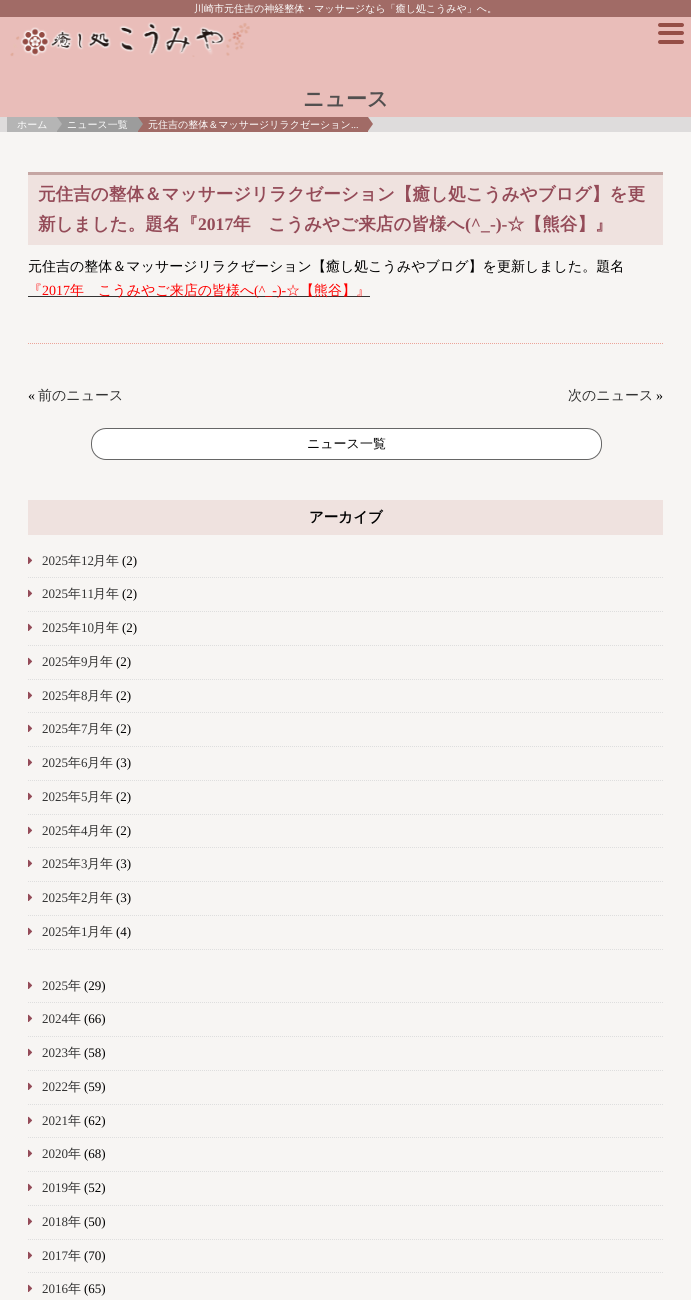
import math
import cairo

surface = cairo.ImageSurface(cairo.FORMAT_RGB24, 691, 1300)
cr = cairo.Context(surface)
options = cairo.FontOptions()
options.set_hint_metrics(cairo.HINT_METRICS_OFF)
options.set_hint_style(cairo.HINT_STYLE_NONE)
cr.set_font_options(options)
cr.set_miter_limit(4)


def rgb(code):
    cr.set_source_rgb(*(v / 255 for v in bytes.fromhex(code[-6:])))


def rrect(x, y, w, h, r):
    cr.new_sub_path()
    for i, (u, v) in enumerate([(x + w - r, y + h - r), (x + r, y + h - r), (x + r, y + r), (x + w - r, y + r)]):
        cr.arc(u, v, r, i * math.pi / 2, (i + 1) * math.pi / 2)
    cr.close_path()


def image(path, x, y, w, h):
    cr.save()
    cr.set_source_surface(cairo.ImageSurface.create_from_png(path), x, y)
    cr.rectangle(x, y, w, h)
    cr.fill()
    cr.restore()


rgb("#f7f5f3")
cr.paint()
rgb("#a16b66")
cr.rectangle(0, 0, 691, 17)
cr.fill()
rgb("#e9bdb9")
cr.rectangle(0, 17, 691, 100)
cr.fill()
image("img/1.png", 10, 22, 240, 35)
rgb("#954e46")
rrect(658, 23, 26, 4, 2)
cr.fill()
rrect(658, 31, 26, 4, 2)
cr.fill()
rrect(658, 40, 26, 4, 2)
cr.fill()
for x, y, w, h, color in [
    (0, 117, 691, 15, "#dedcdc"),
    (7, 117, 50, 15, "#b5b5b5"),
    (57, 117, 81, 15, "#9c9c9c"),
]:
    rgb(color)
    cr.rectangle(x, y, w, h)
    cr.fill()
rgb("#b5b5b5")
cr.new_path()
cr.move_to(57, 131)
cr.line_to(57, 117)
cr.line_to(62, 124)
cr.close_path()
cr.fill()
rgb("#a16b66")
cr.rectangle(138, 117, 230, 15)
cr.fill()
rgb("#9c9c9c")
cr.new_path()
cr.move_to(138, 131)
cr.line_to(138, 117)
cr.line_to(143, 124)
cr.close_path()
cr.fill()
rgb("#a16b66")
cr.new_path()
cr.move_to(368, 131)
cr.line_to(368, 117)
cr.line_to(373, 124)
cr.close_path()
cr.fill()
for x, y, w, h, color in [
    (28, 175, 635, 70, "#efe2df"),
    (28, 172, 635, 3, "#c5a6a3"),
    (28, 296, 342, 1, "#333333"),
]:
    rgb(color)
    cr.rectangle(x, y, w, h)
    cr.fill()
cr.new_path()
cr.move_to(28, 343.5)
cr.line_to(663, 343.5)
rgb("#eca499")
cr.set_line_width(1)
cr.set_dash([1, 1])
cr.stroke()
rgb("#ffffff")
rrect(91.5, 428.5, 510, 31, 14.5)
cr.fill_preserve()
rgb("#666666")
cr.set_dash([])
cr.stroke()
rgb("#efe2df")
cr.rectangle(28, 500, 635, 35)
cr.fill()
cr.new_path()
cr.move_to(28, 577.5)
cr.line_to(663, 577.5)
rgb("#dedede")
cr.set_dash([1, 1])
cr.stroke()
image("img/2.png", 28, 556, 5, 8)
cr.new_path()
cr.move_to(28, 611.5)
cr.line_to(663, 611.5)
cr.stroke()
image("img/2.png", 28, 589, 5, 8)
cr.new_path()
cr.move_to(28, 645.5)
cr.line_to(663, 645.5)
cr.stroke()
image("img/2.png", 28, 623, 5, 8)
cr.new_path()
cr.move_to(28, 679.5)
cr.line_to(663, 679.5)
cr.stroke()
image("img/2.png", 28, 657, 5, 8)
cr.new_path()
cr.move_to(28, 712.5)
cr.line_to(663, 712.5)
cr.stroke()
image("img/2.png", 28, 691, 5, 8)
cr.new_path()
cr.move_to(28, 746.5)
cr.line_to(663, 746.5)
cr.stroke()
image("img/2.png", 28, 724, 5, 8)
cr.new_path()
cr.move_to(28, 780.5)
cr.line_to(663, 780.5)
cr.stroke()
image("img/2.png", 28, 758, 5, 8)
cr.new_path()
cr.move_to(28, 814.5)
cr.line_to(663, 814.5)
cr.stroke()
image("img/2.png", 28, 792, 5, 8)
cr.new_path()
cr.move_to(28, 847.5)
cr.line_to(663, 847.5)
cr.stroke()
image("img/2.png", 28, 826, 5, 8)
cr.new_path()
cr.move_to(28, 881.5)
cr.line_to(663, 881.5)
cr.stroke()
image("img/2.png", 28, 859, 5, 8)
cr.new_path()
cr.move_to(28, 915.5)
cr.line_to(663, 915.5)
cr.stroke()
image("img/2.png", 28, 893, 5, 8)
cr.new_path()
cr.move_to(28, 949.5)
cr.line_to(663, 949.5)
cr.stroke()
image("img/2.png", 28, 927, 5, 8)
cr.new_path()
cr.move_to(28, 1002.5)
cr.line_to(663, 1002.5)
cr.stroke()
image("img/2.png", 28, 981, 5, 8)
cr.new_path()
cr.move_to(28, 1036.5)
cr.line_to(663, 1036.5)
cr.stroke()
image("img/2.png", 28, 1014, 5, 8)
cr.new_path()
cr.move_to(28, 1070.5)
cr.line_to(663, 1070.5)
cr.stroke()
image("img/2.png", 28, 1048, 5, 8)
cr.new_path()
cr.move_to(28, 1104.5)
cr.line_to(663, 1104.5)
cr.stroke()
image("img/2.png", 28, 1082, 5, 8)
cr.new_path()
cr.move_to(28, 1137.5)
cr.line_to(663, 1137.5)
cr.stroke()
image("img/2.png", 28, 1116, 5, 8)
cr.new_path()
cr.move_to(28, 1171.5)
cr.line_to(663, 1171.5)
cr.stroke()
image("img/2.png", 28, 1149, 5, 8)
cr.new_path()
cr.move_to(28, 1205.5)
cr.line_to(663, 1205.5)
cr.stroke()
image("img/2.png", 28, 1183, 5, 8)
cr.new_path()
cr.move_to(28, 1239.5)
cr.line_to(663, 1239.5)
cr.stroke()
image("img/2.png", 28, 1217, 5, 8)
cr.new_path()
cr.move_to(28, 1272.5)
cr.line_to(663, 1272.5)
cr.stroke()
image("img/2.png", 28, 1251, 5, 8)
image("img/2.png", 28, 1284, 5, 8)
cr.select_font_face("WenQuanYi Zen Hei Medium")
cr.set_font_size(10)
rgb("#ffffff")
cr.move_to(194, 12)
cr.show_text("川崎市元住吉の神経整体・マッサージなら「癒し処こうみや」へ。")
cr.select_font_face("WenQuanYi Zen Hei", cairo.FONT_SLANT_NORMAL, cairo.FONT_WEIGHT_BOLD)
cr.set_font_size(21)
rgb("#524f4f")
cr.move_to(303, 106)
cr.show_text("ニュース")
cr.select_font_face("WenQuanYi Zen Hei Medium")
cr.set_font_size(10)
rgb("#ffffff")
for x, y, s in [
    (17, 128, "ホーム"),
    (67, 128, "ニュース一覧"),
    (148, 128, "元住吉の整体＆マッサージリラクゼーション"),
]:
    cr.move_to(x, y)
    cr.show_text(s)
cr.select_font_face("Liberation Serif")
cr.move_to(351, 128)
cr.show_text("...")
cr.select_font_face("WenQuanYi Zen Hei", cairo.FONT_SLANT_NORMAL, cairo.FONT_WEIGHT_BOLD)
cr.set_font_size(17.6)
rgb("#944b58")
cr.move_to(38, 200)
cr.show_text("元住吉の整体＆マッサージリラクゼーション【癒し処こうみやブログ】を更")
cr.move_to(38, 230)
cr.show_text("新しました。題名『")
cr.select_font_face("Liberation Serif", cairo.FONT_SLANT_NORMAL, cairo.FONT_WEIGHT_BOLD)
cr.move_to(198, 230)
cr.show_text("2017")
cr.select_font_face("WenQuanYi Zen Hei", cairo.FONT_SLANT_NORMAL, cairo.FONT_WEIGHT_BOLD)
cr.move_to(233, 230)
cr.show_text("年　こうみやご来店の皆様へ")
cr.select_font_face("Liberation Serif", cairo.FONT_SLANT_NORMAL, cairo.FONT_WEIGHT_BOLD)
cr.move_to(465, 230)
cr.show_text("(^_-)-")
cr.select_font_face("WenQuanYi Zen Hei", cairo.FONT_SLANT_NORMAL, cairo.FONT_WEIGHT_BOLD)
cr.move_to(507, 230)
cr.show_text("☆【熊谷】』")
cr.select_font_face("WenQuanYi Zen Hei Medium")
cr.set_font_size(14)
rgb("#000000")
cr.move_to(28, 271)
cr.show_text("元住吉の整体＆マッサージリラクゼーション【癒し処こうみやブログ】を更新しました。題名")
rgb("#ff0000")
cr.move_to(28, 295)
cr.show_text("『")
cr.select_font_face("Liberation Serif")
cr.move_to(42, 295)
cr.show_text("2017")
cr.select_font_face("WenQuanYi Zen Hei Medium")
cr.move_to(70, 295)
cr.show_text("年　こうみやご来店の皆様へ")
cr.select_font_face("Liberation Serif")
cr.move_to(254, 295)
cr.show_text("(^_-)-")
cr.select_font_face("WenQuanYi Zen Hei Medium")
cr.move_to(286, 295)
cr.show_text("☆【熊谷】』")
cr.select_font_face("Liberation Serif")
rgb("#000000")
cr.move_to(28, 400)
cr.show_text("«")
cr.select_font_face("WenQuanYi Zen Hei Medium")
rgb("#333333")
cr.move_to(38, 400)
cr.show_text("前のニュース")
cr.move_to(568, 400)
cr.show_text("次のニュース")
cr.select_font_face("Liberation Serif")
rgb("#000000")
cr.move_to(656, 400)
cr.show_text("»")
cr.select_font_face("WenQuanYi Zen Hei Medium")
cr.set_font_size(13)
cr.move_to(307, 448)
cr.show_text("ニュース一覧")
cr.select_font_face("WenQuanYi Zen Hei", cairo.FONT_SLANT_NORMAL, cairo.FONT_WEIGHT_BOLD)
cr.set_font_size(14.5)
cr.move_to(309, 522)
cr.show_text("アーカイブ")
cr.select_font_face("Liberation Serif")
cr.set_font_size(13)
rgb("#333333")
cr.move_to(42, 565)
cr.show_text("2025")
cr.select_font_face("WenQuanYi Zen Hei Medium")
cr.move_to(68, 565)
cr.show_text("年")
cr.select_font_face("Liberation Serif")
cr.move_to(81, 565)
cr.show_text("12")
cr.select_font_face("WenQuanYi Zen Hei Medium")
cr.move_to(93, 565)
cr.show_text("月年")
cr.select_font_face("Liberation Serif")
rgb("#000000")
cr.move_to(122, 565)
cr.show_text("(2)")
rgb("#333333")
cr.move_to(42, 598)
cr.show_text("2025")
cr.select_font_face("WenQuanYi Zen Hei Medium")
cr.move_to(68, 598)
cr.show_text("年")
cr.select_font_face("Liberation Serif")
cr.move_to(81, 598)
cr.show_text("11")
cr.select_font_face("WenQuanYi Zen Hei Medium")
cr.move_to(93, 598)
cr.show_text("月年")
cr.select_font_face("Liberation Serif")
rgb("#000000")
cr.move_to(122, 598)
cr.show_text("(2)")
rgb("#333333")
cr.move_to(42, 632)
cr.show_text("2025")
cr.select_font_face("WenQuanYi Zen Hei Medium")
cr.move_to(68, 632)
cr.show_text("年")
cr.select_font_face("Liberation Serif")
cr.move_to(81, 632)
cr.show_text("10")
cr.select_font_face("WenQuanYi Zen Hei Medium")
cr.move_to(93, 632)
cr.show_text("月年")
cr.select_font_face("Liberation Serif")
rgb("#000000")
cr.move_to(122, 632)
cr.show_text("(2)")
rgb("#333333")
cr.move_to(42, 666)
cr.show_text("2025")
cr.select_font_face("WenQuanYi Zen Hei Medium")
cr.move_to(68, 666)
cr.show_text("年")
cr.select_font_face("Liberation Serif")
cr.move_to(81, 666)
cr.show_text("9")
cr.select_font_face("WenQuanYi Zen Hei Medium")
cr.move_to(87, 666)
cr.show_text("月年")
cr.select_font_face("Liberation Serif")
rgb("#000000")
cr.move_to(116, 666)
cr.show_text("(2)")
rgb("#333333")
cr.move_to(42, 700)
cr.show_text("2025")
cr.select_font_face("WenQuanYi Zen Hei Medium")
cr.move_to(68, 700)
cr.show_text("年")
cr.select_font_face("Liberation Serif")
cr.move_to(81, 700)
cr.show_text("8")
cr.select_font_face("WenQuanYi Zen Hei Medium")
cr.move_to(87, 700)
cr.show_text("月年")
cr.select_font_face("Liberation Serif")
rgb("#000000")
cr.move_to(116, 700)
cr.show_text("(2)")
rgb("#333333")
cr.move_to(42, 733)
cr.show_text("2025")
cr.select_font_face("WenQuanYi Zen Hei Medium")
cr.move_to(68, 733)
cr.show_text("年")
cr.select_font_face("Liberation Serif")
cr.move_to(81, 733)
cr.show_text("7")
cr.select_font_face("WenQuanYi Zen Hei Medium")
cr.move_to(87, 733)
cr.show_text("月年")
cr.select_font_face("Liberation Serif")
rgb("#000000")
cr.move_to(116, 733)
cr.show_text("(2)")
rgb("#333333")
cr.move_to(42, 767)
cr.show_text("2025")
cr.select_font_face("WenQuanYi Zen Hei Medium")
cr.move_to(68, 767)
cr.show_text("年")
cr.select_font_face("Liberation Serif")
cr.move_to(81, 767)
cr.show_text("6")
cr.select_font_face("WenQuanYi Zen Hei Medium")
cr.move_to(87, 767)
cr.show_text("月年")
cr.select_font_face("Liberation Serif")
rgb("#000000")
cr.move_to(116, 767)
cr.show_text("(3)")
rgb("#333333")
cr.move_to(42, 801)
cr.show_text("2025")
cr.select_font_face("WenQuanYi Zen Hei Medium")
cr.move_to(68, 801)
cr.show_text("年")
cr.select_font_face("Liberation Serif")
cr.move_to(81, 801)
cr.show_text("5")
cr.select_font_face("WenQuanYi Zen Hei Medium")
cr.move_to(87, 801)
cr.show_text("月年")
cr.select_font_face("Liberation Serif")
rgb("#000000")
cr.move_to(116, 801)
cr.show_text("(2)")
rgb("#333333")
cr.move_to(42, 835)
cr.show_text("2025")
cr.select_font_face("WenQuanYi Zen Hei Medium")
cr.move_to(68, 835)
cr.show_text("年")
cr.select_font_face("Liberation Serif")
cr.move_to(81, 835)
cr.show_text("4")
cr.select_font_face("WenQuanYi Zen Hei Medium")
cr.move_to(87, 835)
cr.show_text("月年")
cr.select_font_face("Liberation Serif")
rgb("#000000")
cr.move_to(116, 835)
cr.show_text("(2)")
rgb("#333333")
cr.move_to(42, 868)
cr.show_text("2025")
cr.select_font_face("WenQuanYi Zen Hei Medium")
cr.move_to(68, 868)
cr.show_text("年")
cr.select_font_face("Liberation Serif")
cr.move_to(81, 868)
cr.show_text("3")
cr.select_font_face("WenQuanYi Zen Hei Medium")
cr.move_to(87, 868)
cr.show_text("月年")
cr.select_font_face("Liberation Serif")
rgb("#000000")
cr.move_to(116, 868)
cr.show_text("(3)")
rgb("#333333")
cr.move_to(42, 902)
cr.show_text("2025")
cr.select_font_face("WenQuanYi Zen Hei Medium")
cr.move_to(68, 902)
cr.show_text("年")
cr.select_font_face("Liberation Serif")
cr.move_to(81, 902)
cr.show_text("2")
cr.select_font_face("WenQuanYi Zen Hei Medium")
cr.move_to(87, 902)
cr.show_text("月年")
cr.select_font_face("Liberation Serif")
rgb("#000000")
cr.move_to(116, 902)
cr.show_text("(3)")
rgb("#333333")
cr.move_to(42, 936)
cr.show_text("2025")
cr.select_font_face("WenQuanYi Zen Hei Medium")
cr.move_to(68, 936)
cr.show_text("年")
cr.select_font_face("Liberation Serif")
cr.move_to(81, 936)
cr.show_text("1")
cr.select_font_face("WenQuanYi Zen Hei Medium")
cr.move_to(87, 936)
cr.show_text("月年")
cr.select_font_face("Liberation Serif")
rgb("#000000")
cr.move_to(116, 936)
cr.show_text("(4)")
rgb("#333333")
cr.move_to(42, 990)
cr.show_text("2025")
cr.select_font_face("WenQuanYi Zen Hei Medium")
cr.move_to(68, 990)
cr.show_text("年")
cr.select_font_face("Liberation Serif")
rgb("#000000")
cr.move_to(84, 990)
cr.show_text("(29)")
rgb("#333333")
cr.move_to(42, 1023)
cr.show_text("2024")
cr.select_font_face("WenQuanYi Zen Hei Medium")
cr.move_to(68, 1023)
cr.show_text("年")
cr.select_font_face("Liberation Serif")
rgb("#000000")
cr.move_to(84, 1023)
cr.show_text("(66)")
rgb("#333333")
cr.move_to(42, 1057)
cr.show_text("2023")
cr.select_font_face("WenQuanYi Zen Hei Medium")
cr.move_to(68, 1057)
cr.show_text("年")
cr.select_font_face("Liberation Serif")
rgb("#000000")
cr.move_to(84, 1057)
cr.show_text("(58)")
rgb("#333333")
cr.move_to(42, 1091)
cr.show_text("2022")
cr.select_font_face("WenQuanYi Zen Hei Medium")
cr.move_to(68, 1091)
cr.show_text("年")
cr.select_font_face("Liberation Serif")
rgb("#000000")
cr.move_to(84, 1091)
cr.show_text("(59)")
rgb("#333333")
cr.move_to(42, 1125)
cr.show_text("2021")
cr.select_font_face("WenQuanYi Zen Hei Medium")
cr.move_to(68, 1125)
cr.show_text("年")
cr.select_font_face("Liberation Serif")
rgb("#000000")
cr.move_to(84, 1125)
cr.show_text("(62)")
rgb("#333333")
cr.move_to(42, 1158)
cr.show_text("2020")
cr.select_font_face("WenQuanYi Zen Hei Medium")
cr.move_to(68, 1158)
cr.show_text("年")
cr.select_font_face("Liberation Serif")
rgb("#000000")
cr.move_to(84, 1158)
cr.show_text("(68)")
rgb("#333333")
cr.move_to(42, 1192)
cr.show_text("2019")
cr.select_font_face("WenQuanYi Zen Hei Medium")
cr.move_to(68, 1192)
cr.show_text("年")
cr.select_font_face("Liberation Serif")
rgb("#000000")
cr.move_to(84, 1192)
cr.show_text("(52)")
rgb("#333333")
cr.move_to(42, 1226)
cr.show_text("2018")
cr.select_font_face("WenQuanYi Zen Hei Medium")
cr.move_to(68, 1226)
cr.show_text("年")
cr.select_font_face("Liberation Serif")
rgb("#000000")
cr.move_to(84, 1226)
cr.show_text("(50)")
rgb("#333333")
cr.move_to(42, 1260)
cr.show_text("2017")
cr.select_font_face("WenQuanYi Zen Hei Medium")
cr.move_to(68, 1260)
cr.show_text("年")
cr.select_font_face("Liberation Serif")
rgb("#000000")
cr.move_to(84, 1260)
cr.show_text("(70)")
rgb("#333333")
cr.move_to(42, 1293)
cr.show_text("2016")
cr.select_font_face("WenQuanYi Zen Hei Medium")
cr.move_to(68, 1293)
cr.show_text("年")
cr.select_font_face("Liberation Serif")
rgb("#000000")
cr.move_to(84, 1293)
cr.show_text("(65)")
surface.write_to_png("page.png")
